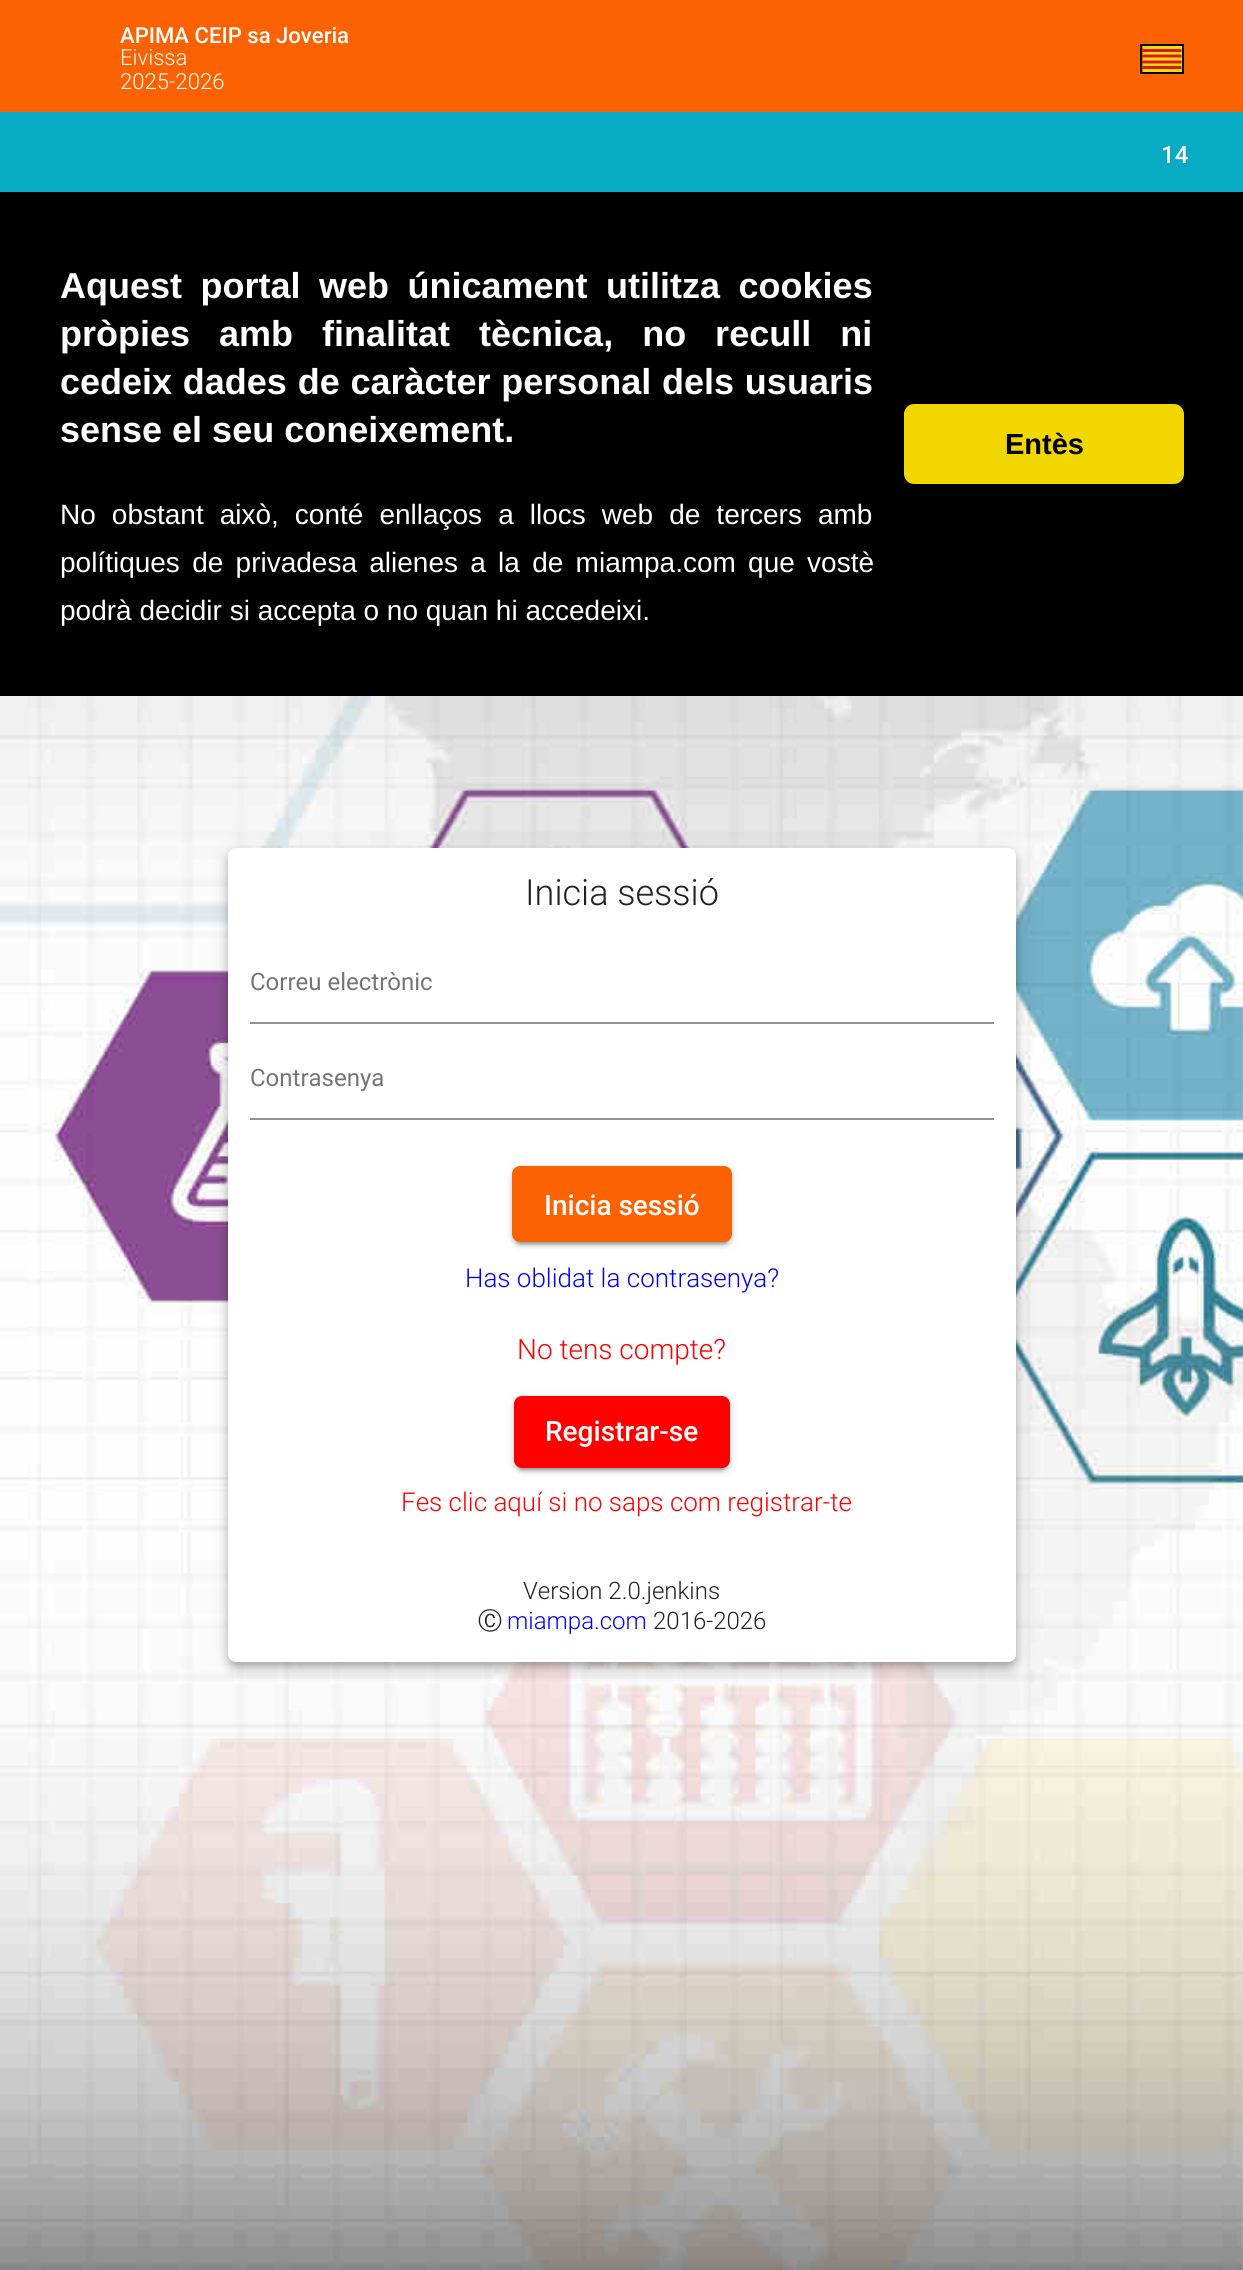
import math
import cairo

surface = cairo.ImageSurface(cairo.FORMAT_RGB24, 1243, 2270)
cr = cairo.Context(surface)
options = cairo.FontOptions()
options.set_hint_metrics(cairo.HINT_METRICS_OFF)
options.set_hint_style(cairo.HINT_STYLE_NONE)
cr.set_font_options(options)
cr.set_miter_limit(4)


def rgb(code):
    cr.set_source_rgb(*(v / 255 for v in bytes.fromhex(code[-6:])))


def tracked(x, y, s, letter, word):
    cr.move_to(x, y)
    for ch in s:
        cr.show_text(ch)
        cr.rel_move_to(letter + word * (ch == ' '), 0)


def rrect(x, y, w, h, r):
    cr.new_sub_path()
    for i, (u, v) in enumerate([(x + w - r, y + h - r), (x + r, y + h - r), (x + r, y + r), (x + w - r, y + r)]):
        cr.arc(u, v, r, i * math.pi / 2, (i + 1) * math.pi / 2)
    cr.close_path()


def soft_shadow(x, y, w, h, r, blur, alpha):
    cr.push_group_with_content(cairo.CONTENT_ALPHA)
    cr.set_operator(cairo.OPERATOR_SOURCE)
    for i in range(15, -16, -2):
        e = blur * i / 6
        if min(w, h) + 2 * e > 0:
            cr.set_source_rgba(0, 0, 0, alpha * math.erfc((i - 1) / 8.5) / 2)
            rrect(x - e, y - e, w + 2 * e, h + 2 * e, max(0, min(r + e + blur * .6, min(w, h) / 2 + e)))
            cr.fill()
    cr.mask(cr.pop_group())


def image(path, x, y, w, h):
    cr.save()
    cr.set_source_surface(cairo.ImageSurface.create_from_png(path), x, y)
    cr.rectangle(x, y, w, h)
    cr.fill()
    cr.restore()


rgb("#ffffff")
cr.paint()
rgb("#fc6202")
cr.rectangle(0, 0, 1243, 112)
cr.fill()
cr.rectangle(1141, 45, 42, 28)
rgb("#000000")
cr.stroke()
rgb("#fcdd09")
cr.rectangle(1143, 46, 39, 26)
cr.fill()
cr.new_path()
cr.move_to(1142.5, 50.5)
cr.line_to(1181.5, 50.5)
cr.move_to(1181.5, 56)
cr.line_to(1142.5, 56)
cr.move_to(1142.5, 62)
cr.line_to(1181.5, 62)
cr.move_to(1181.5, 67.5)
cr.line_to(1142.5, 67.5)
rgb("#da121a")
cr.set_line_width(2.9)
cr.stroke()
rgb("#07abc4")
cr.rectangle(0, 112, 1243, 80)
cr.fill()
image("img/1.png", 0, 696, 1243, 1574)
rgb("#000000")
soft_shadow(228, 850, 788, 814, 8, 10, 0.12)
soft_shadow(228, 856, 788, 814, 8, 5, 0.14)
soft_shadow(230, 854, 784, 810, 6, 4, 0.2)
rgb("#ffffff")
rrect(228, 848, 788, 814, 8)
cr.fill()
rgb("#949494")
cr.rectangle(250, 1022, 744, 2)
cr.fill()
cr.rectangle(250, 1118, 744, 2)
cr.fill()
rgb("#000000")
soft_shadow(512, 1168, 220, 76, 8, 5, 0.12)
soft_shadow(512, 1170, 220, 76, 8, 2, 0.14)
soft_shadow(516, 1176, 212, 68, 4, 1, 0.2)
rgb("#fc6202")
rrect(512, 1166, 220, 76, 8)
cr.fill()
rgb("#000000")
soft_shadow(514, 1398, 216, 72, 8, 5, 0.12)
soft_shadow(514, 1400, 216, 72, 8, 2, 0.14)
soft_shadow(518, 1406, 208, 64, 4, 1, 0.2)
rgb("#ff0000")
rrect(514, 1396, 216, 72, 8)
cr.fill()
rgb("#000000")
cr.rectangle(0, 192, 1243, 504)
cr.fill()
rgb("#f1d600")
rrect(904, 404, 280, 80, 10)
cr.fill()
cr.select_font_face("Roboto Medium")
cr.set_font_size(22.1)
rgb("#ffffff")
cr.move_to(120, 43)
cr.show_text("APIMA CEIP sa Joveria")
cr.select_font_face("Roboto Light")
cr.move_to(120, 65)
cr.show_text("Eivissa")
cr.move_to(120, 89)
cr.show_text("2025-2026")
cr.select_font_face("Roboto Medium")
cr.set_font_size(24)
cr.move_to(1161, 163)
cr.show_text("14")
cr.select_font_face("Roboto Light")
cr.set_font_size(36)
rgb("#212121")
cr.move_to(525, 905)
cr.show_text("Inicia sessió")
cr.select_font_face("Roboto")
cr.set_font_size(24)
rgb("#757575")
cr.move_to(250, 990)
cr.show_text("Correu electrònic")
cr.move_to(250, 1086)
cr.show_text("Contrasenya")
cr.select_font_face("Roboto Medium")
cr.set_font_size(28)
rgb("#ffffff")
cr.move_to(544, 1215)
cr.show_text("Inicia sessió")
cr.select_font_face("Roboto Light")
cr.set_font_size(26)
rgb("#0000ff")
cr.move_to(465, 1287)
cr.show_text("Has oblidat la contrasenya?")
cr.set_font_size(28)
rgb("#ff0000")
cr.move_to(517, 1359)
cr.show_text("No tens compte?")
cr.select_font_face("Roboto Medium")
rgb("#ffffff")
cr.move_to(545, 1441)
cr.show_text("Registrar-se")
cr.select_font_face("Roboto Light")
cr.set_font_size(26)
rgb("#ff0000")
cr.move_to(401, 1511)
cr.show_text("Fes clic aquí si no saps com registrar-te")
cr.set_font_size(24)
rgb("#212121")
cr.move_to(523, 1599)
cr.show_text("Version 2.0.jenkins")
cr.select_font_face("WenQuanYi Zen Hei Medium")
cr.move_to(478, 1629)
cr.show_text("Ⓒ")
cr.select_font_face("Roboto Light")
rgb("#0000ff")
cr.move_to(507, 1629)
cr.show_text("miampa.com")
rgb("#212121")
cr.move_to(653, 1629)
cr.show_text("2016-2026")
cr.select_font_face("Liberation Sans", cairo.FONT_SLANT_NORMAL, cairo.FONT_WEIGHT_BOLD)
cr.set_font_size(36)
rgb("#ffffff")
tracked(60, 298, "Aquest portal web únicament utilitza cookies", 0, 8.5)
tracked(60, 346, "pròpies amb finalitat tècnica, no recull ni", 0, 19)
tracked(60, 394, "cedeix dades de caràcter personal dels usuaris", 0, 0.75)
cr.move_to(60, 442)
cr.show_text("sense el seu coneixement.")
cr.select_font_face("Liberation Sans")
cr.set_font_size(28)
tracked(60, 524, "No obstant això, conté enllaços a llocs web de tercers amb", 0, 8.25)
tracked(60, 572, "polítiques de privadesa alienes a la de miampa.com que vostè", 0, 4.5)
cr.move_to(60, 620)
cr.show_text("podrà decidir si accepta o no quan hi accedeixi.")
cr.select_font_face("Liberation Sans", cairo.FONT_SLANT_NORMAL, cairo.FONT_WEIGHT_BOLD)
cr.set_font_size(29)
rgb("#000000")
cr.move_to(1005, 454)
cr.show_text("Entès")
surface.write_to_png("page.png")
